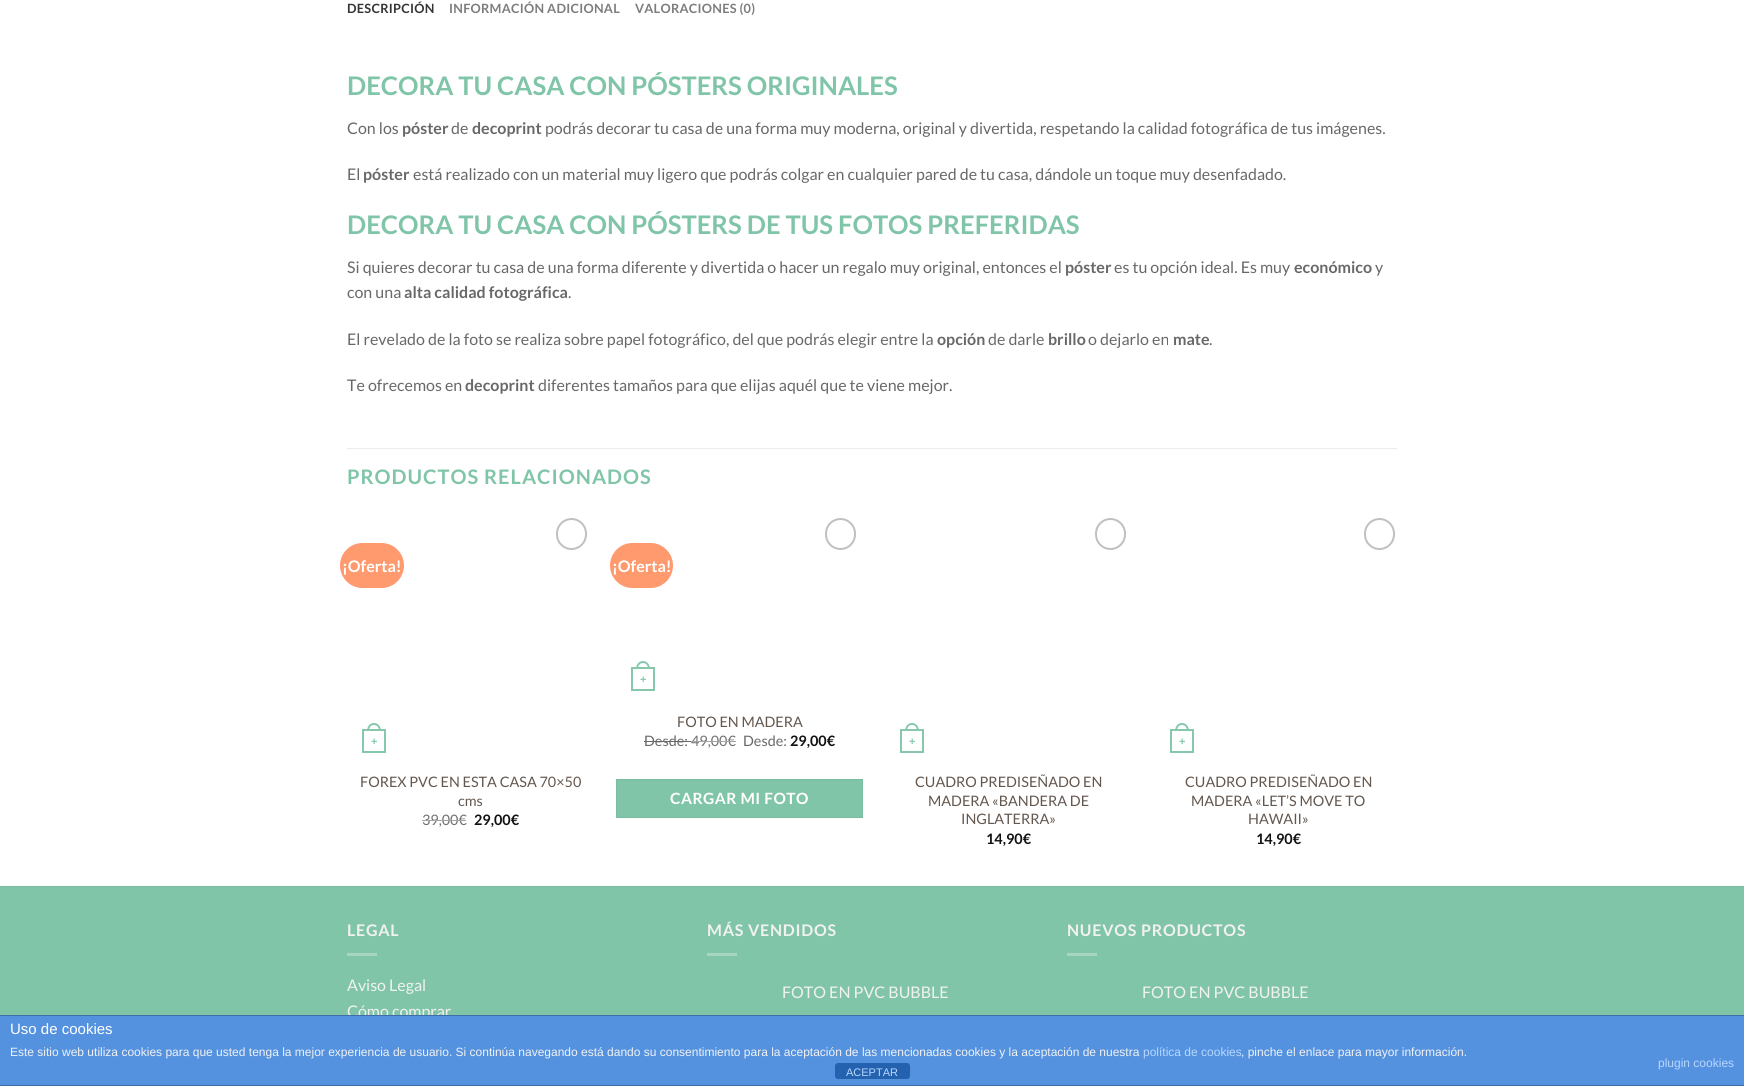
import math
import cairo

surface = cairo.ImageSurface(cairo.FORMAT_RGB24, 1744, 1086)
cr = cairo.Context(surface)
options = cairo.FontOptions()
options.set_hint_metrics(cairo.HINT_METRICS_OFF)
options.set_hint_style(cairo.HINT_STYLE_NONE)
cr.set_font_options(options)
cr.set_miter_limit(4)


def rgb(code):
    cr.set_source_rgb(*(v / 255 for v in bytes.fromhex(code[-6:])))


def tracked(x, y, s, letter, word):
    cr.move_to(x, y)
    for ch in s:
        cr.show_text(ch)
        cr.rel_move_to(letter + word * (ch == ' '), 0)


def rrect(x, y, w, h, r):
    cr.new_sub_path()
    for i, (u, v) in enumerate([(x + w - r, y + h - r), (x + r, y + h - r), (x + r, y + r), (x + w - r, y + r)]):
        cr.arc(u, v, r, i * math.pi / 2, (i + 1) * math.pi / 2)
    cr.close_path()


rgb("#ffffff")
cr.paint()
rgb("#ececec")
cr.rectangle(347, 448, 1050, 1)
cr.fill()
rgb("#ff996e")
rrect(340, 543, 64, 45, 22.5)
cr.fill()
rrect(557, 519, 29, 30, 14.5)
rgb("#c0c0c0")
cr.stroke()
cr.rectangle(363, 730, 22, 22)
rgb("#87c8ad")
cr.stroke()
cr.set_fill_rule(cairo.FILL_RULE_EVEN_ODD)
cr.new_path()
cr.move_to(374, 723)
cr.curve_to(378.5, 723, 381, 727, 381, 731)
cr.line_to(367, 731)
cr.curve_to(367, 727, 369.5, 723, 374, 723)
cr.close_path()
cr.move_to(374, 725)
cr.curve_to(377.5, 725, 379, 728, 379, 731)
cr.line_to(369, 731)
cr.curve_to(369, 728, 370.5, 725, 374, 725)
cr.close_path()
cr.fill()
rgb("#ff996e")
rrect(610, 543, 63, 45, 22.5)
cr.fill()
rrect(826, 519, 29, 30, 14.5)
rgb("#c0c0c0")
cr.stroke()
cr.rectangle(632, 668, 22, 22)
rgb("#87c8ad")
cr.stroke()
cr.new_path()
cr.move_to(643, 661)
cr.curve_to(647.5, 661, 650, 665, 650, 669)
cr.line_to(636, 669)
cr.curve_to(636, 665, 638.5, 661, 643, 661)
cr.close_path()
cr.move_to(643, 663)
cr.curve_to(646.5, 663, 648, 666, 648, 669)
cr.line_to(638, 669)
cr.curve_to(638, 666, 639.5, 663, 643, 663)
cr.close_path()
cr.fill()
rgb("#686868")
cr.rectangle(644, 741, 47, 1)
cr.fill()
rgb("#81c5a9")
cr.rectangle(616.5, 779.5, 246, 38)
cr.fill_preserve()
rgb("#7bbba1")
cr.set_line_width(1)
cr.stroke()
rrect(1096, 519, 29, 30, 14.5)
rgb("#c0c0c0")
cr.set_line_width(2)
cr.stroke()
cr.rectangle(901, 730, 22, 22)
rgb("#87c8ad")
cr.stroke()
cr.new_path()
cr.move_to(912, 723)
cr.curve_to(916.5, 723, 919, 727, 919, 731)
cr.line_to(905, 731)
cr.curve_to(905, 727, 907.5, 723, 912, 723)
cr.close_path()
cr.move_to(912, 725)
cr.curve_to(915.5, 725, 917, 728, 917, 731)
cr.line_to(907, 731)
cr.curve_to(907, 728, 908.5, 725, 912, 725)
cr.close_path()
cr.fill()
rrect(1365, 519, 29, 30, 14.5)
rgb("#c0c0c0")
cr.stroke()
cr.rectangle(1171, 730, 22, 22)
rgb("#87c8ad")
cr.stroke()
cr.new_path()
cr.move_to(1182, 723)
cr.curve_to(1186.5, 723, 1189, 727, 1189, 731)
cr.line_to(1175, 731)
cr.curve_to(1175, 727, 1177.5, 723, 1182, 723)
cr.close_path()
cr.move_to(1182, 725)
cr.curve_to(1185.5, 725, 1187, 728, 1187, 731)
cr.line_to(1177, 731)
cr.curve_to(1177, 728, 1178.5, 725, 1182, 725)
cr.close_path()
cr.fill()
for x, y, w, h, color in [
    (0, 887, 1744, 128, "#81c5a9"),
    (0, 886, 1744, 1, "#7bbba1"),
    (347, 953, 30, 3, "#a7d6c3"),
    (707, 953, 30, 3, "#a7d6c3"),
    (1067, 953, 30, 3, "#a7d6c3"),
    (0, 1085, 1744, 1, "#3f6da7"),
]:
    rgb(color)
    cr.rectangle(x, y, w, h)
    cr.fill()
cr.select_font_face("Lato", cairo.FONT_SLANT_NORMAL, cairo.FONT_WEIGHT_BOLD)
cr.set_font_size(12.75)
rgb("#353535")
tracked(347, 13, "DESCRIPCIÓN", 0.25, 0)
rgb("#7d7d7d")
tracked(449, 13, "INFORMACIÓN ADICIONAL", 0.25, 0)
tracked(635, 13, "VALORACIONES (0)", 0.25, 0)
cr.set_font_size(25.6)
rgb("#81c5a9")
cr.move_to(347, 95)
cr.show_text("DECORA TU CASA CON PÓSTERS ORIGINALES")
cr.select_font_face("Lato")
cr.set_font_size(16)
rgb("#686868")
cr.move_to(347, 134)
cr.show_text("Con los")
cr.select_font_face("Lato", cairo.FONT_SLANT_NORMAL, cairo.FONT_WEIGHT_BOLD)
cr.move_to(402, 134)
cr.show_text("póster")
cr.select_font_face("Lato")
cr.move_to(451, 134)
cr.show_text("de")
cr.select_font_face("Lato", cairo.FONT_SLANT_NORMAL, cairo.FONT_WEIGHT_BOLD)
cr.move_to(472, 134)
cr.show_text("decoprint")
cr.select_font_face("Lato")
cr.move_to(545, 134)
cr.show_text("podrás decorar tu casa de una forma muy moderna, original y divertida, respetando la calidad fotográfica de tus imágenes.")
cr.move_to(347, 180)
cr.show_text("El")
cr.select_font_face("Lato", cairo.FONT_SLANT_NORMAL, cairo.FONT_WEIGHT_BOLD)
cr.move_to(363, 180)
cr.show_text("póster")
cr.select_font_face("Lato")
cr.move_to(413, 180)
cr.show_text("está realizado con un material muy ligero que podrás colgar en cualquier pared de tu casa, dándole un toque muy desenfadado.")
cr.select_font_face("Lato", cairo.FONT_SLANT_NORMAL, cairo.FONT_WEIGHT_BOLD)
cr.set_font_size(25.6)
rgb("#81c5a9")
cr.move_to(347, 234)
cr.show_text("DECORA TU CASA CON PÓSTERS DE TUS FOTOS PREFERIDAS")
cr.select_font_face("Lato")
cr.set_font_size(16)
rgb("#686868")
cr.move_to(347, 273)
cr.show_text("Si quieres decorar tu casa de una forma diferente y divertida o hacer un regalo muy original, entonces el")
cr.select_font_face("Lato", cairo.FONT_SLANT_NORMAL, cairo.FONT_WEIGHT_BOLD)
cr.move_to(1065, 273)
cr.show_text("póster")
cr.select_font_face("Lato")
cr.move_to(1114, 273)
cr.show_text("es tu opción ideal. Es muy")
cr.select_font_face("Lato", cairo.FONT_SLANT_NORMAL, cairo.FONT_WEIGHT_BOLD)
cr.move_to(1294, 273)
cr.show_text("económico")
cr.select_font_face("Lato")
cr.move_to(1375, 273)
cr.show_text("y")
cr.move_to(347, 298)
cr.show_text("con una")
cr.select_font_face("Lato", cairo.FONT_SLANT_NORMAL, cairo.FONT_WEIGHT_BOLD)
cr.move_to(404, 298)
cr.show_text("alta calidad fotográfica")
cr.select_font_face("Lato")
cr.move_to(568, 298)
cr.show_text(".")
cr.move_to(347, 345)
cr.show_text("El revelado de la foto se realiza sobre papel fotográfico, del que podrás elegir entre la")
cr.select_font_face("Lato", cairo.FONT_SLANT_NORMAL, cairo.FONT_WEIGHT_BOLD)
cr.move_to(937, 345)
cr.show_text("opción")
cr.select_font_face("Lato")
cr.move_to(988, 345)
cr.show_text("de darle")
cr.select_font_face("Lato", cairo.FONT_SLANT_NORMAL, cairo.FONT_WEIGHT_BOLD)
cr.move_to(1048, 345)
cr.show_text("brillo")
cr.select_font_face("Lato")
cr.move_to(1088, 345)
cr.show_text("o dejarlo en")
cr.select_font_face("Lato", cairo.FONT_SLANT_NORMAL, cairo.FONT_WEIGHT_BOLD)
cr.move_to(1173, 345)
cr.show_text("mate")
cr.select_font_face("Lato")
cr.move_to(1209, 345)
cr.show_text(".")
cr.move_to(347, 391)
cr.show_text("Te ofrecemos en")
cr.select_font_face("Lato", cairo.FONT_SLANT_NORMAL, cairo.FONT_WEIGHT_BOLD)
cr.move_to(465, 391)
cr.show_text("decoprint")
cr.select_font_face("Lato")
cr.move_to(538, 391)
cr.show_text("diferentes tamaños para que elijas aquél que te viene mejor.")
cr.select_font_face("Lato", cairo.FONT_SLANT_NORMAL, cairo.FONT_WEIGHT_BOLD)
cr.set_font_size(20)
rgb("#81c5a9")
tracked(347, 484, "PRODUCTOS RELACIONADOS", 1, 0)
cr.set_font_size(16)
rgb("#ffffff")
cr.move_to(342, 572)
cr.show_text("¡Oferta!")
cr.select_font_face("Liberation Sans", cairo.FONT_SLANT_NORMAL, cairo.FONT_WEIGHT_BOLD)
cr.set_font_size(11)
rgb("#87c8ad")
cr.move_to(371, 745)
cr.show_text("+")
cr.select_font_face("Lato")
cr.set_font_size(14.4)
rgb("#63574e")
cr.move_to(360, 787)
cr.show_text("FOREX PVC EN ESTA CASA 70×50")
cr.move_to(458, 806)
cr.show_text("cms")
rgb("#707070")
cr.move_to(422, 825)
cr.show_text("39,00€")
rgb("#a4a4a4")
cr.rectangle(422, 820, 44, 1)
cr.fill()
cr.select_font_face("Lato", cairo.FONT_SLANT_NORMAL, cairo.FONT_WEIGHT_BOLD)
rgb("#111111")
cr.move_to(474, 825)
cr.show_text("29,00€")
cr.set_font_size(16)
rgb("#ffffff")
cr.move_to(612, 572)
cr.show_text("¡Oferta!")
cr.select_font_face("Liberation Sans", cairo.FONT_SLANT_NORMAL, cairo.FONT_WEIGHT_BOLD)
cr.set_font_size(11)
rgb("#87c8ad")
cr.move_to(640, 683)
cr.show_text("+")
cr.select_font_face("Lato")
cr.set_font_size(14.4)
rgb("#63574e")
cr.move_to(677, 727)
cr.show_text("FOTO EN MADERA")
rgb("#686868")
cr.move_to(644, 746)
cr.show_text("Desde:")
rgb("#707070")
cr.move_to(691, 746)
cr.show_text("49,00€")
rgb("#a4a4a4")
cr.rectangle(691, 741, 45, 1)
cr.fill()
rgb("#686868")
cr.move_to(743, 746)
cr.show_text("Desde:")
cr.select_font_face("Lato", cairo.FONT_SLANT_NORMAL, cairo.FONT_WEIGHT_BOLD)
rgb("#111111")
cr.move_to(790, 746)
cr.show_text("29,00€")
cr.set_font_size(15.5)
rgb("#ffffff")
tracked(670, 804, "CARGAR MI FOTO", 0.5, 0)
cr.select_font_face("Liberation Sans", cairo.FONT_SLANT_NORMAL, cairo.FONT_WEIGHT_BOLD)
cr.set_font_size(11)
rgb("#87c8ad")
cr.move_to(909, 745)
cr.show_text("+")
cr.select_font_face("Lato")
cr.set_font_size(14.4)
rgb("#63574e")
for x, y, s in [
    (915, 787, "CUADRO PREDISEÑADO EN"),
    (928, 806, "MADERA «BANDERA DE"),
    (961, 824, "INGLATERRA»"),
]:
    cr.move_to(x, y)
    cr.show_text(s)
cr.select_font_face("Lato", cairo.FONT_SLANT_NORMAL, cairo.FONT_WEIGHT_BOLD)
rgb("#111111")
cr.move_to(986, 844)
cr.show_text("14,90€")
cr.select_font_face("Liberation Sans", cairo.FONT_SLANT_NORMAL, cairo.FONT_WEIGHT_BOLD)
cr.set_font_size(11)
rgb("#87c8ad")
cr.move_to(1179, 745)
cr.show_text("+")
cr.select_font_face("Lato")
cr.set_font_size(14.4)
rgb("#63574e")
for x, y, s in [
    (1185, 787, "CUADRO PREDISEÑADO EN"),
    (1191, 806, "MADERA «LET’S MOVE TO"),
    (1248, 824, "HAWAII»"),
]:
    cr.move_to(x, y)
    cr.show_text(s)
cr.select_font_face("Lato", cairo.FONT_SLANT_NORMAL, cairo.FONT_WEIGHT_BOLD)
rgb("#111111")
cr.move_to(1256, 844)
cr.show_text("14,90€")
cr.set_font_size(16)
rgb("#f1f1f1")
tracked(347, 936, "LEGAL", 0.75, 0)
cr.select_font_face("Lato")
cr.move_to(347, 991)
cr.show_text("Aviso Legal")
cr.move_to(347, 1017)
cr.show_text("Cómo comprar")
cr.select_font_face("Lato", cairo.FONT_SLANT_NORMAL, cairo.FONT_WEIGHT_BOLD)
tracked(707, 936, "MÁS VENDIDOS", 0.75, 0)
cr.select_font_face("Lato")
cr.move_to(782, 998)
cr.show_text("FOTO EN PVC BUBBLE")
cr.select_font_face("Lato", cairo.FONT_SLANT_NORMAL, cairo.FONT_WEIGHT_BOLD)
tracked(1067, 936, "NUEVOS PRODUCTOS", 0.75, 0)
cr.select_font_face("Lato")
cr.move_to(1142, 998)
cr.show_text("FOTO EN PVC BUBBLE")
rgb("#5492e0")
cr.rectangle(0, 1016, 1744, 69)
cr.fill()
rgb("#3f6da7")
cr.rectangle(0, 1015, 1744, 1)
cr.fill()
cr.select_font_face("Liberation Sans")
cr.set_font_size(15)
rgb("#ffffff")
cr.move_to(10, 1034)
cr.show_text("Uso de cookies")
cr.set_font_size(12)
rgb("#f1f1f1")
cr.move_to(10, 1056)
cr.show_text("Este sitio web utiliza cookies para que usted tenga la mejor experiencia de usuario. Si continúa navegando está dando su consentimiento para la aceptación de las mencionadas cookies y la aceptación de nuestra")
rgb("#b7d7ff")
cr.move_to(1143, 1056)
cr.show_text("política de cookies")
rgb("#f1f1f1")
cr.move_to(1241, 1056)
cr.show_text(", pinche el enlace para mayor información.")
rgb("#b7d7ff")
cr.move_to(1658, 1067)
cr.show_text("plugin cookies")
rgb("#2462b0")
rrect(835, 1063, 75, 16, 3)
cr.fill()
cr.set_font_size(11)
rgb("#b7d7ff")
cr.move_to(846, 1076)
cr.show_text("ACEPTAR")
surface.write_to_png("page.png")
